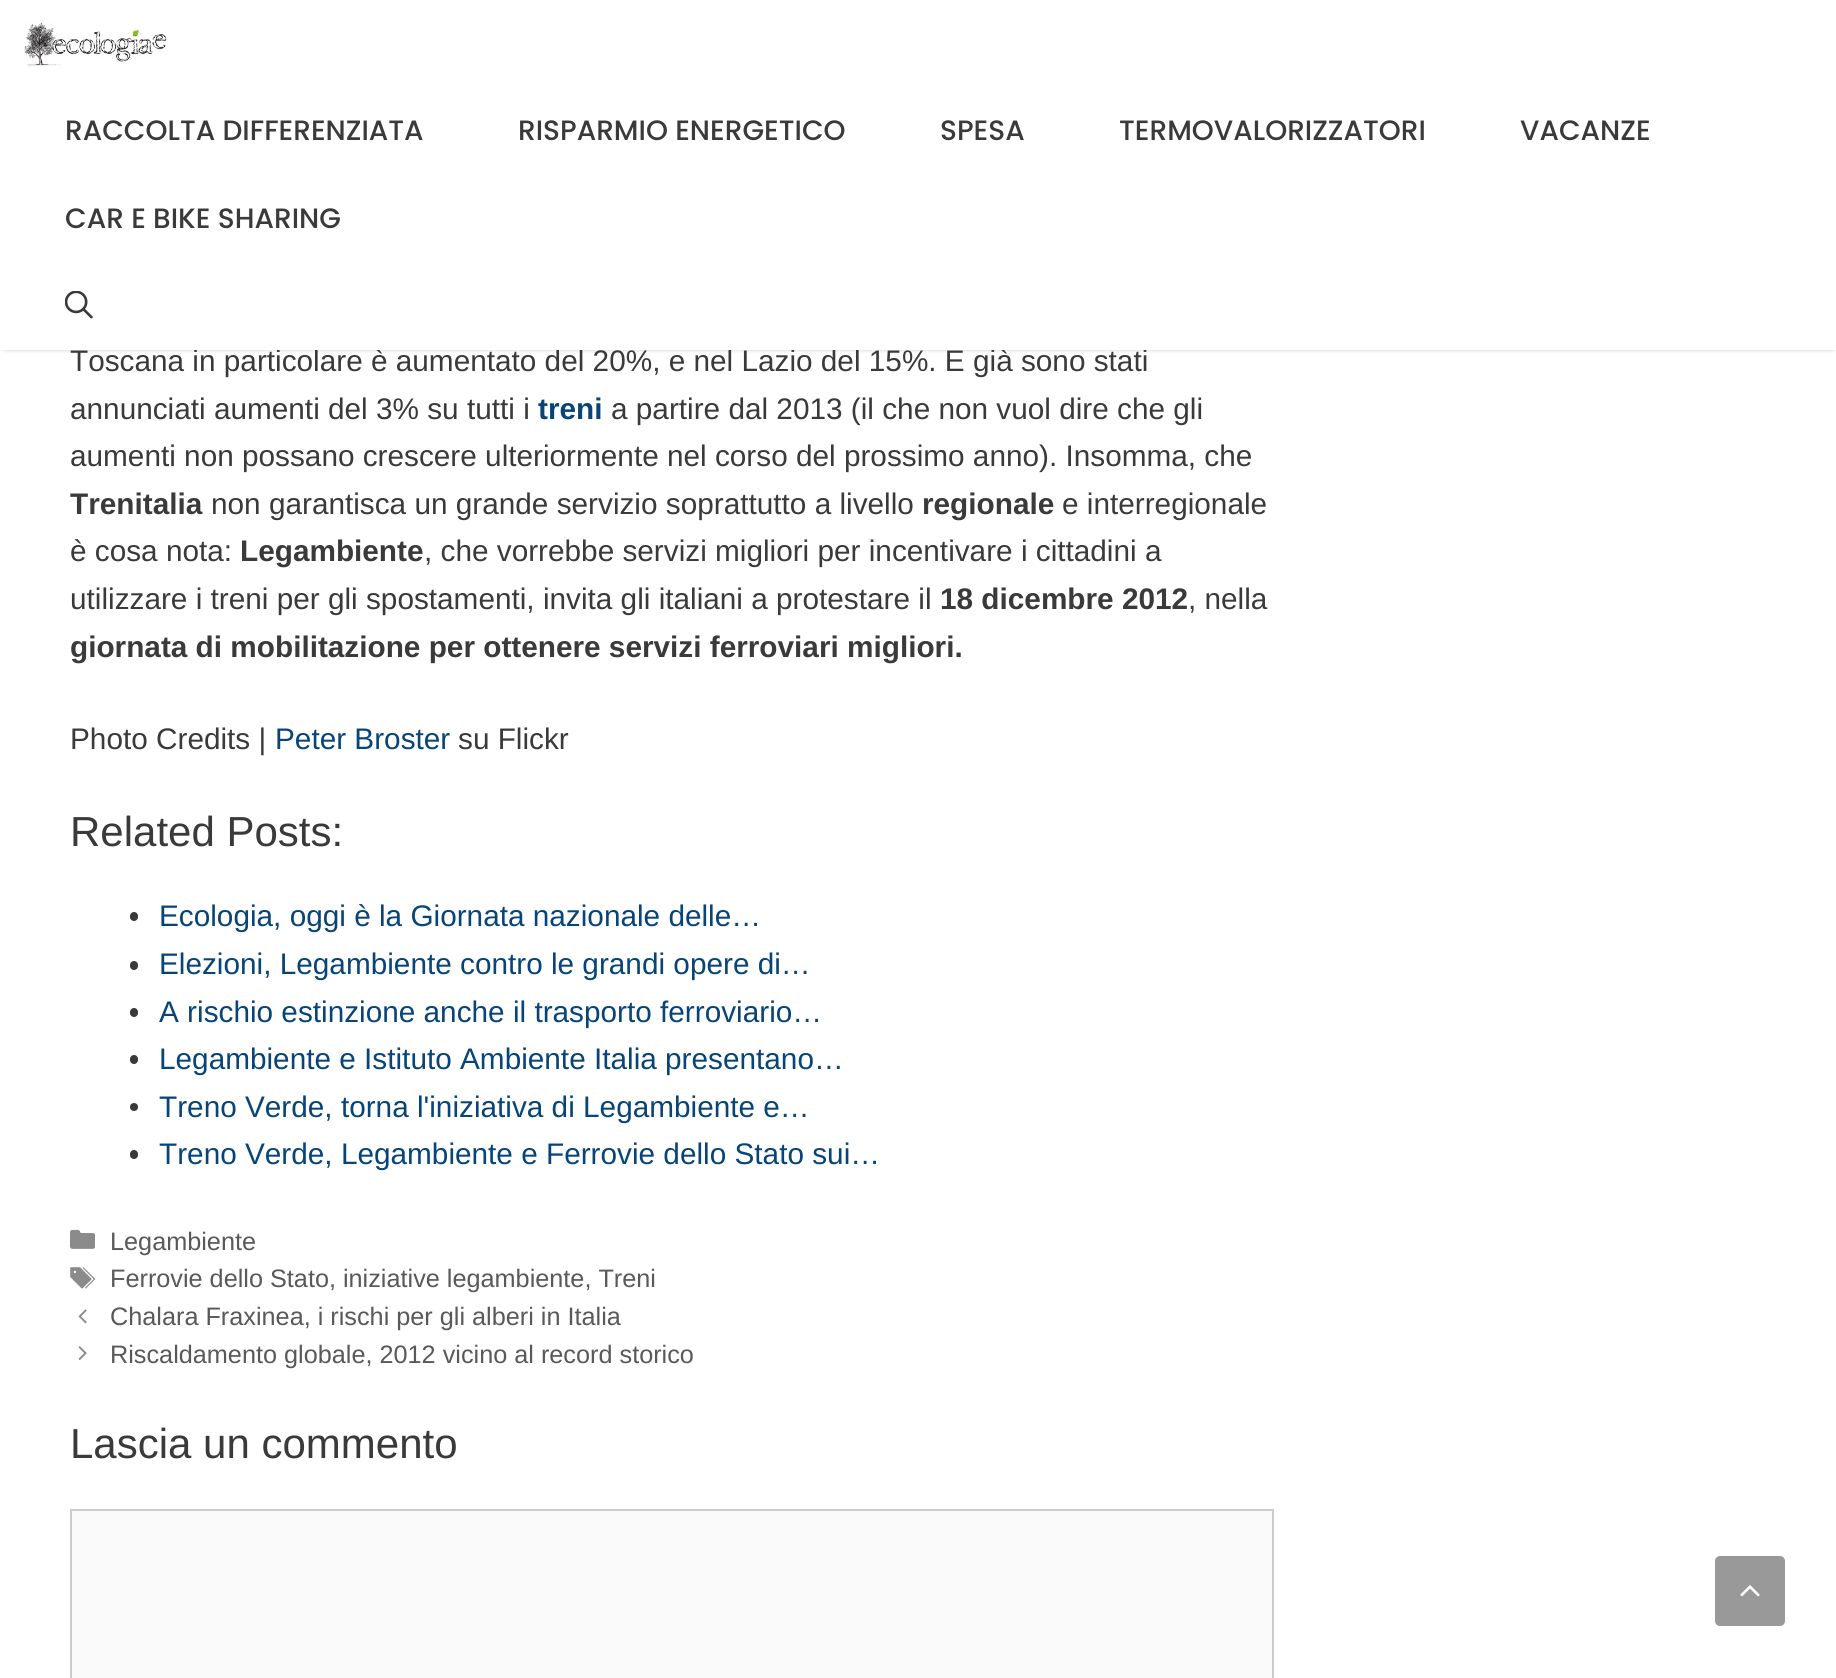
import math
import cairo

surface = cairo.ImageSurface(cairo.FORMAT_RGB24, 1836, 1678)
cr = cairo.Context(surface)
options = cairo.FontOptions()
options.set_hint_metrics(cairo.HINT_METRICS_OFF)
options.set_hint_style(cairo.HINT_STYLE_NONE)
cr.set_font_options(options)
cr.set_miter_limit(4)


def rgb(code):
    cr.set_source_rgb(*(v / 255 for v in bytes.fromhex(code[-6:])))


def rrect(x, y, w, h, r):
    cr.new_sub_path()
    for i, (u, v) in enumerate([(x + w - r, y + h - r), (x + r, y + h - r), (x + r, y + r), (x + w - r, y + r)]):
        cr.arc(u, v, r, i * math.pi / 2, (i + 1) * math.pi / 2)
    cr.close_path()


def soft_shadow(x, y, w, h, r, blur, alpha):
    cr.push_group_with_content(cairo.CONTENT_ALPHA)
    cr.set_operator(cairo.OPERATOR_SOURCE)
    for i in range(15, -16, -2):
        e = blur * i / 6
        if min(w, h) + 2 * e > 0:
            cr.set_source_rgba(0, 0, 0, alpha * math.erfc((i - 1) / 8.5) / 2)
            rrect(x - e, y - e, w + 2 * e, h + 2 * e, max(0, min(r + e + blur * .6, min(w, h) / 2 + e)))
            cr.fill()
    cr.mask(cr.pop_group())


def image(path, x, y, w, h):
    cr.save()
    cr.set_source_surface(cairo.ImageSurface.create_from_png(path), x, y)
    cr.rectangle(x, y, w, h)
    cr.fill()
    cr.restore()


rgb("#ffffff")
cr.paint()
rgb("#000000")
soft_shadow(4, 7, 1830, 343, 0, 2, 0.2)
rgb("#3a3a3a")
rrect(130, 912, 8, 9, 4)
cr.fill()
rrect(130, 961, 8, 9, 4)
cr.fill()
rrect(130, 1008, 8, 9, 4)
cr.fill()
rrect(130, 1055, 8, 9, 4)
cr.fill()
cr.arc(134, 1107, 4, 0, 2 * math.pi)
cr.fill()
rrect(130, 1150, 8, 9, 4)
cr.fill()
image("img/3.png", 70, 1229, 25, 20)
image("img/4.png", 70, 1267, 25, 22)
image("img/5.png", 78, 1309, 9, 15)
image("img/6.png", 78, 1346, 9, 14)
rgb("#fafafa")
cr.rectangle(71, 1510, 1202, 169)
cr.fill_preserve()
rgb("#cccccc")
cr.stroke()
rgb("#999999")
rrect(1715, 1556, 70, 70, 5)
cr.fill()
image("img/7.png", 1740, 1585, 20, 12)
cr.select_font_face("Liberation Sans")
cr.set_font_size(29.75)
rgb("#3a3a3a")
cr.move_to(70, 371)
cr.show_text("Toscana in particolare è aumentato del 20%, e nel Lazio del 15%. E già sono stati")
rgb("#ffffff")
cr.rectangle(1, 4, 1835, 346)
cr.fill()
image("img/2.png", 65, 291, 28, 28)
cr.select_font_face("Poppins Medium")
cr.set_font_size(28)
rgb("#3a3a3a")
for x, y, s in [
    (65, 228, "CAR E BIKE SHARING"),
    (1520, 140, "VACANZE"),
    (1119, 140, "TERMOVALORIZZATORI"),
    (940, 140, "SPESA"),
    (518, 140, "RISPARMIO ENERGETICO"),
    (65, 140, "RACCOLTA DIFFERENZIATA"),
]:
    cr.move_to(x, y)
    cr.show_text(s)
image("img/1.png", 24, 22, 143, 44)
cr.select_font_face("Liberation Sans")
cr.set_font_size(29.75)
cr.move_to(70, 419)
cr.show_text("annunciati aumenti del 3% su tutti i")
cr.select_font_face("Liberation Sans", cairo.FONT_SLANT_NORMAL, cairo.FONT_WEIGHT_BOLD)
rgb("#06447a")
cr.move_to(538, 419)
cr.show_text("treni")
cr.select_font_face("Liberation Sans")
rgb("#3a3a3a")
cr.move_to(611, 419)
cr.show_text("a partire dal 2013 (il che non vuol dire che gli")
cr.move_to(70, 466)
cr.show_text("aumenti non possano crescere ulteriormente nel corso del prossimo anno). Insomma, che")
cr.select_font_face("Liberation Sans", cairo.FONT_SLANT_NORMAL, cairo.FONT_WEIGHT_BOLD)
cr.move_to(70, 514)
cr.show_text("Trenitalia")
cr.select_font_face("Liberation Sans")
cr.move_to(211, 514)
cr.show_text("non garantisca un grande servizio soprattutto a livello")
cr.select_font_face("Liberation Sans", cairo.FONT_SLANT_NORMAL, cairo.FONT_WEIGHT_BOLD)
cr.move_to(922, 514)
cr.show_text("regionale")
cr.select_font_face("Liberation Sans")
cr.move_to(1062, 514)
cr.show_text("e interregionale")
cr.move_to(70, 561)
cr.show_text("è cosa nota:")
cr.select_font_face("Liberation Sans", cairo.FONT_SLANT_NORMAL, cairo.FONT_WEIGHT_BOLD)
cr.move_to(240, 561)
cr.show_text("Legambiente")
cr.select_font_face("Liberation Sans")
cr.move_to(424, 561)
cr.show_text(", che vorrebbe servizi migliori per incentivare i cittadini a")
cr.move_to(70, 609)
cr.show_text("utilizzare i treni per gli spostamenti, invita gli italiani a protestare il")
cr.select_font_face("Liberation Sans", cairo.FONT_SLANT_NORMAL, cairo.FONT_WEIGHT_BOLD)
cr.move_to(940, 609)
cr.show_text("18 dicembre 2012")
cr.select_font_face("Liberation Sans")
cr.move_to(1188, 609)
cr.show_text(", nella")
cr.select_font_face("Liberation Sans", cairo.FONT_SLANT_NORMAL, cairo.FONT_WEIGHT_BOLD)
cr.move_to(70, 657)
cr.show_text("giornata di mobilitazione per ottenere servizi ferroviari migliori.")
cr.select_font_face("Liberation Sans")
cr.move_to(70, 749)
cr.show_text("Photo Credits |")
rgb("#06447a")
cr.move_to(275, 749)
cr.show_text("Peter Broster")
rgb("#3a3a3a")
cr.move_to(458, 749)
cr.show_text("su Flickr")
cr.set_font_size(42)
cr.move_to(70, 846)
cr.show_text("Related Posts:")
cr.set_font_size(29.75)
rgb("#06447a")
for x, y, s in [
    (159, 926, "Ecologia, oggi è la Giornata nazionale delle…"),
    (159, 974, "Elezioni, Legambiente contro le grandi opere di…"),
    (159, 1022, "A rischio estinzione anche il trasporto ferroviario…"),
    (159, 1069, "Legambiente e Istituto Ambiente Italia presentano…"),
    (159, 1117, "Treno Verde, torna l'iniziativa di Legambiente e…"),
    (159, 1164, "Treno Verde, Legambiente e Ferrovie dello Stato sui…"),
]:
    cr.move_to(x, y)
    cr.show_text(s)
cr.set_font_size(25.25)
rgb("#595959")
for x, y, s in [
    (110, 1250, "Legambiente"),
    (110, 1287, "Ferrovie dello Stato, iniziative legambiente, Treni"),
    (110, 1325, "Chalara Fraxinea, i rischi per gli alberi in Italia"),
    (110, 1363, "Riscaldamento globale, 2012 vicino al record storico"),
]:
    cr.move_to(x, y)
    cr.show_text(s)
cr.set_font_size(42)
rgb("#3a3a3a")
cr.move_to(70, 1458)
cr.show_text("Lascia un commento")
surface.write_to_png("page.png")
